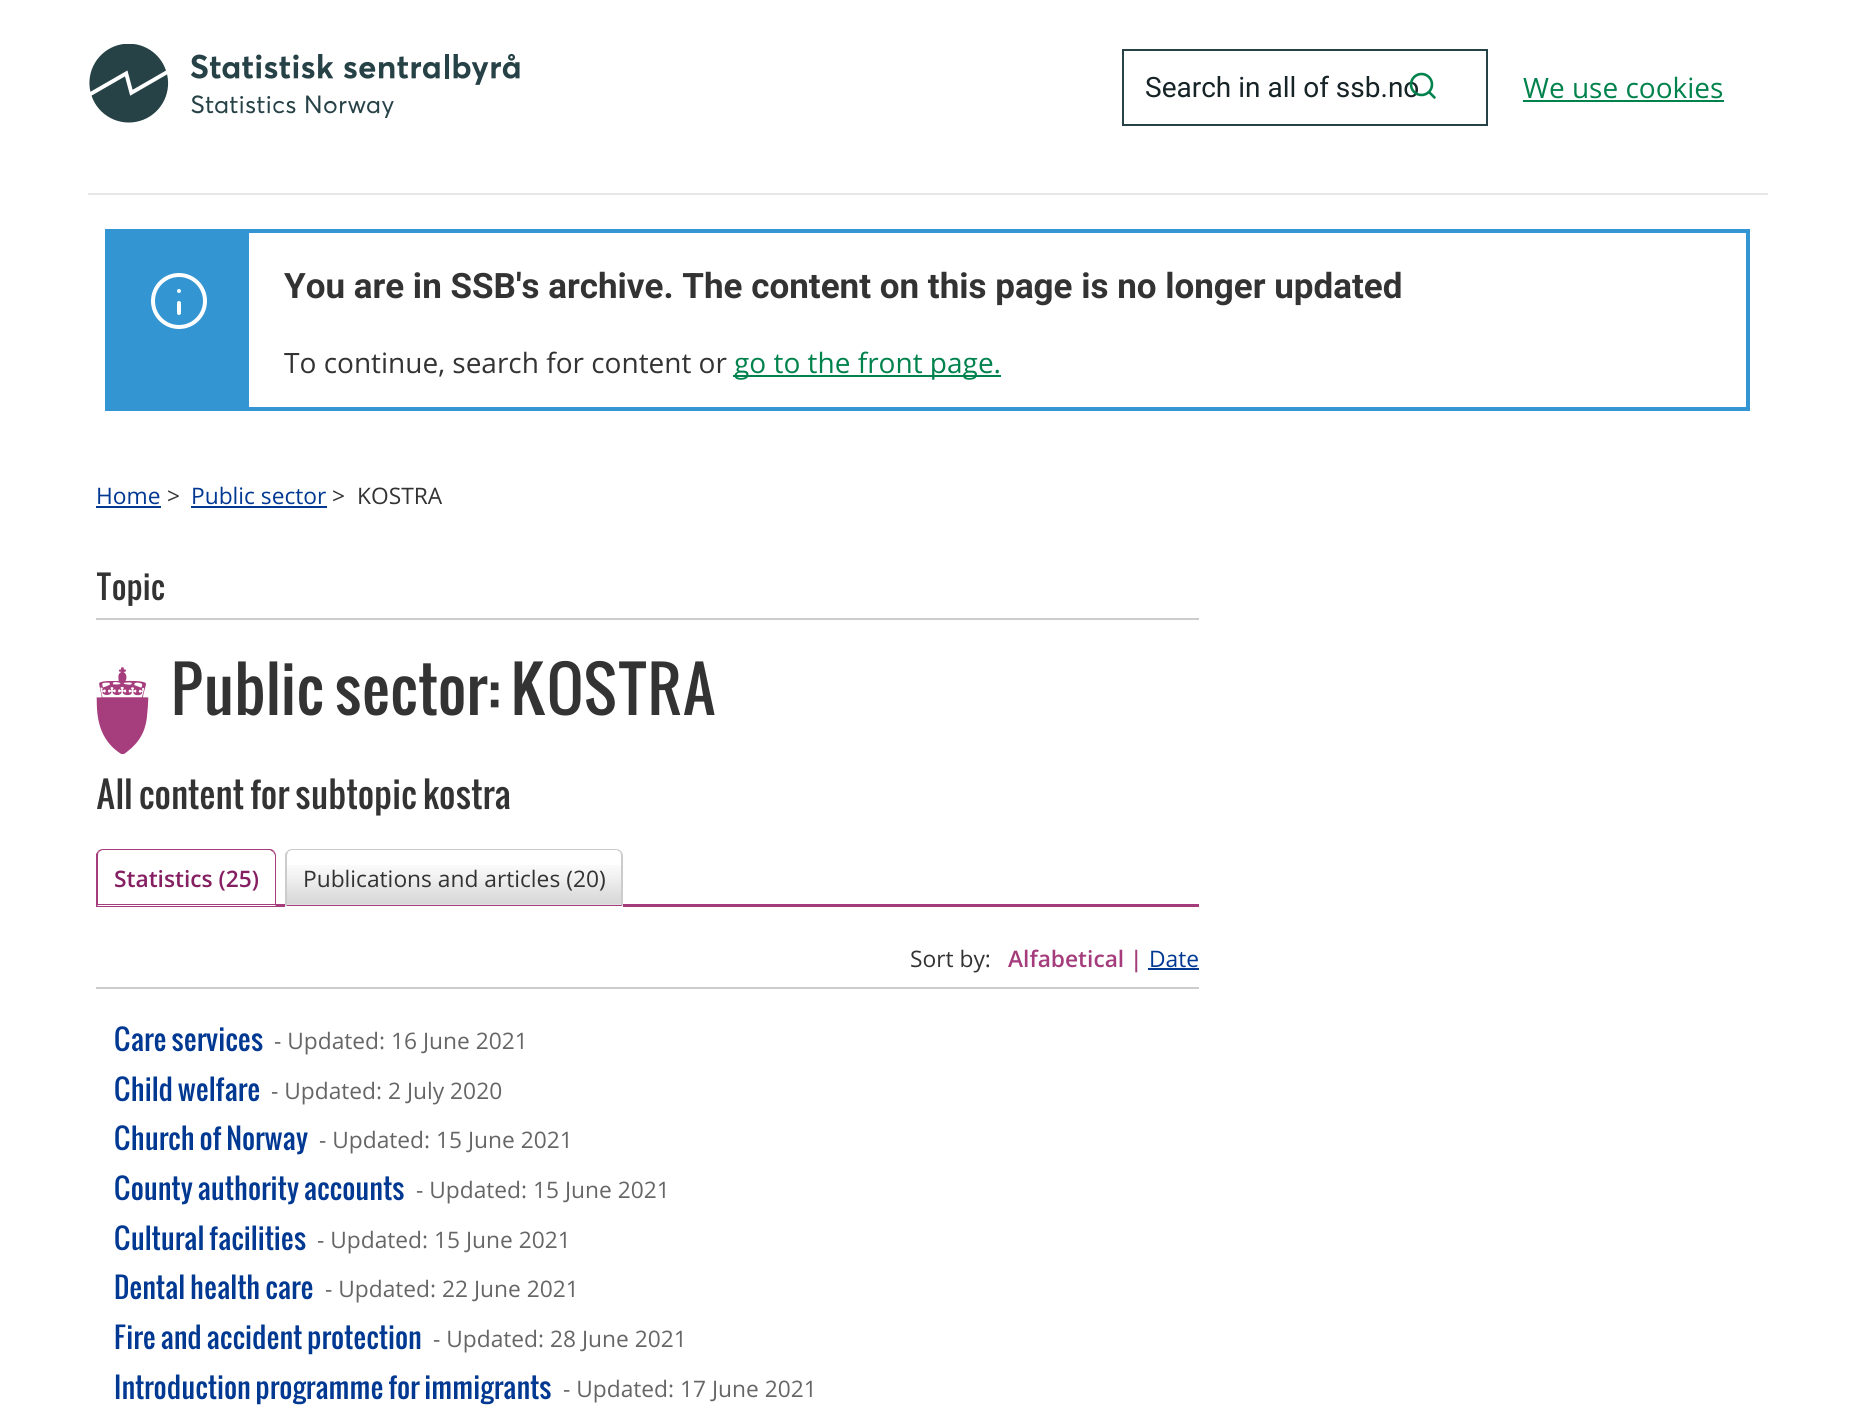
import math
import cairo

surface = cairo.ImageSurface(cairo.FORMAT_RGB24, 1854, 1423)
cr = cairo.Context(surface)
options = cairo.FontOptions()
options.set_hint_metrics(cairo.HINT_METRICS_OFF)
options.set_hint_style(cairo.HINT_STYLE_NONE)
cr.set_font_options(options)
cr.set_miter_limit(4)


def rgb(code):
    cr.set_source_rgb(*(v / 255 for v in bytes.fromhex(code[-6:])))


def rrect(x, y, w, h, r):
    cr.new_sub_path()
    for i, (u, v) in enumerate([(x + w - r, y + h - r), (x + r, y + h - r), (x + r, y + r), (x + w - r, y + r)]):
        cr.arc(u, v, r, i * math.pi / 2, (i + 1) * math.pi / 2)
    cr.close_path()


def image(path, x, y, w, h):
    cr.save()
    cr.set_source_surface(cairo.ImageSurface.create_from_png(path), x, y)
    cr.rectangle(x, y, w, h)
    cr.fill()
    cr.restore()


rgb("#ffffff")
cr.paint()
image("img/1.png", 89, 44, 431, 79)
cr.rectangle(1123, 50, 364, 75)
rgb("#274247")
cr.stroke()
rgb("#00824d")
cr.rectangle(1523, 100, 201, 2)
cr.fill()
rgb("#e6e6e6")
cr.rectangle(88, 193, 1680, 2)
cr.fill()
cr.rectangle(107, 231, 1641, 178)
rgb("#3396d2")
cr.set_line_width(4)
cr.stroke()
cr.rectangle(109, 233, 140, 174)
cr.fill()
cr.arc(179, 301, 26, 0, 2 * math.pi)
rgb("#ffffff")
cr.stroke()
cr.arc(179, 291, 2, 0, 2 * math.pi)
cr.fill()
rrect(177, 301, 4, 14, 2)
cr.fill()
for x, y, w, h, color in [
    (733, 375, 268, 2, "#00824d"),
    (96, 506, 65, 2, "#003892"),
    (191, 506, 136, 2, "#003892"),
    (96, 618, 1103, 2, "#cccccc"),
]:
    rgb(color)
    cr.rectangle(x, y, w, h)
    cr.fill()
image("img/2.png", 96, 667, 53, 87)
rgb("#a53d7c")
cr.rectangle(96, 904, 1103, 3)
cr.fill()
cr.new_path()
cr.move_to(103, 849)
cr.curve_to(101, 849, 99, 850, 98, 851)
cr.line_to(99, 852)
cr.curve_to(100, 851, 102, 850, 103, 850)
cr.line_to(270, 850)
cr.line_to(273, 852)
cr.line_to(274, 851)
cr.curve_to(273, 850, 272, 849, 270, 849)
cr.close_path()
cr.fill()
cr.new_path()
cr.move_to(276, 906)
cr.line_to(276, 856)
cr.curve_to(276, 854, 275, 852, 274, 851)
cr.line_to(273, 852)
cr.curve_to(274, 853, 275, 855, 275, 856)
cr.line_to(275, 905)
cr.close_path()
cr.fill()
rgb("#ffffff")
cr.new_path()
cr.move_to(276, 906)
cr.line_to(275, 905)
cr.line_to(98, 905)
cr.line_to(97, 906)
cr.close_path()
cr.fill()
rgb("#a53d7c")
cr.new_path()
cr.move_to(96, 854)
cr.line_to(98, 851)
cr.line_to(99, 852)
cr.curve_to(98, 853, 98, 854, 98, 856)
cr.line_to(98, 905)
cr.line_to(96, 906)
cr.close_path()
cr.fill()
rgb("#ffffff")
cr.new_path()
cr.move_to(292, 849)
cr.line_to(616, 849)
cr.curve_to(620, 849, 623, 852, 623, 856)
cr.line_to(623, 907)
cr.line_to(285, 907)
cr.line_to(285, 856)
cr.curve_to(285, 852, 288, 849, 292, 849)
cr.close_path()
cr.fill()
image("img/3.png", 287, 865, 335, 40)
rgb("#cccccc")
cr.new_path()
cr.move_to(292, 849)
cr.curve_to(290, 849, 288, 850, 287, 851)
cr.line_to(288, 852)
cr.curve_to(289, 851, 291, 850, 292, 850)
cr.line_to(617, 850)
cr.line_to(620, 852)
cr.line_to(621, 851)
cr.curve_to(620, 850, 618, 849, 616, 849)
cr.close_path()
cr.fill()
cr.new_path()
cr.move_to(621, 851)
cr.curve_to(622, 852, 623, 854, 623, 856)
cr.line_to(623, 906)
cr.line_to(621, 904)
cr.line_to(621, 856)
cr.curve_to(621, 855, 621, 853, 620, 852)
cr.close_path()
cr.fill()
rgb("#a53d7c")
cr.new_path()
cr.move_to(622, 906)
cr.line_to(286, 906)
cr.line_to(287, 905)
cr.line_to(621, 905)
cr.line_to(621, 904)
cr.close_path()
cr.fill()
rgb("#cccccc")
cr.new_path()
cr.move_to(285, 854)
cr.line_to(287, 851)
cr.line_to(288, 852)
cr.curve_to(288, 853, 287, 854, 287, 856)
cr.line_to(287, 905)
cr.line_to(285, 906)
cr.close_path()
cr.fill()
cr.rectangle(96, 987, 1103, 2)
cr.fill()
rgb("#003892")
cr.rectangle(1148, 968, 51, 2)
cr.fill()
cr.select_font_face("Roboto")
cr.set_font_size(28)
rgb("#162327")
cr.move_to(1145, 97)
cr.show_text("Search in all of ssb.no")
cr.new_path()
cr.arc(1421.5, 84.5, 10.5, 0, 2 * math.pi)
rgb("#00824d")
cr.set_line_width(2.6)
cr.stroke()
cr.new_path()
cr.move_to(1434.5, 97.5)
cr.line_to(1429, 92)
cr.set_line_cap(cairo.LINE_CAP_ROUND)
cr.set_line_join(cairo.LINE_JOIN_ROUND)
cr.stroke()
cr.select_font_face("Open Sans")
cr.move_to(1523, 98)
cr.show_text("We use cookies")
cr.select_font_face("Roboto", cairo.FONT_SLANT_NORMAL, cairo.FONT_WEIGHT_BOLD)
cr.set_font_size(35)
rgb("#333333")
cr.move_to(284, 298)
cr.show_text("You are in SSB's archive. The content on this page is no longer updated")
cr.select_font_face("Open Sans")
cr.set_font_size(28)
cr.move_to(284, 373)
cr.show_text("To continue, search for content or")
rgb("#00824d")
cr.move_to(734, 373)
cr.show_text("go to the front page.")
cr.set_font_size(22.75)
rgb("#003892")
cr.move_to(96, 504)
cr.show_text("Home")
rgb("#333333")
cr.move_to(167, 504)
cr.show_text(">")
rgb("#003892")
cr.move_to(191, 504)
cr.show_text("Public sector")
rgb("#333333")
cr.move_to(332, 504)
cr.show_text(">")
cr.move_to(357, 504)
cr.show_text("KOSTRA")
cr.select_font_face("Oswald")
cr.set_font_size(31.5)
cr.move_to(96, 600)
cr.show_text("Topic")
cr.set_font_size(61.25)
cr.move_to(171, 715)
cr.show_text("Public sector: KOSTRA")
cr.set_font_size(35)
cr.move_to(96, 809)
cr.show_text("All content for subtopic kostra")
cr.select_font_face("Open Sans SemiBold")
cr.set_font_size(22.75)
rgb("#861f62")
cr.move_to(114, 887)
cr.show_text("Statistics (25)")
cr.select_font_face("Open Sans")
rgb("#333333")
cr.move_to(303, 887)
cr.show_text("Publications and articles (20)")
cr.move_to(910, 967)
cr.show_text("Sort by:")
cr.select_font_face("Open Sans SemiBold")
rgb("#a53d7c")
cr.move_to(1008, 967)
cr.show_text("Alfabetical |")
cr.select_font_face("Open Sans")
rgb("#003892")
cr.move_to(1149, 967)
cr.show_text("Date")
cr.select_font_face("Oswald")
cr.set_font_size(28)
cr.move_to(114, 1051)
cr.show_text("Care services")
cr.select_font_face("Open Sans")
cr.set_font_size(22.75)
rgb("#666666")
cr.move_to(274, 1049)
cr.show_text("- Updated: 16 June 2021")
cr.select_font_face("Oswald")
cr.set_font_size(28)
rgb("#003892")
cr.move_to(114, 1101)
cr.show_text("Child welfare")
cr.select_font_face("Open Sans")
cr.set_font_size(22.75)
rgb("#666666")
cr.move_to(271, 1099)
cr.show_text("- Updated: 2 July 2020")
cr.select_font_face("Oswald")
cr.set_font_size(28)
rgb("#003892")
cr.move_to(114, 1150)
cr.show_text("Church of Norway")
cr.select_font_face("Open Sans")
cr.set_font_size(22.75)
rgb("#666666")
cr.move_to(319, 1148)
cr.show_text("- Updated: 15 June 2021")
cr.select_font_face("Oswald")
cr.set_font_size(28)
rgb("#003892")
cr.move_to(114, 1200)
cr.show_text("County authority accounts")
cr.select_font_face("Open Sans")
cr.set_font_size(22.75)
rgb("#666666")
cr.move_to(416, 1198)
cr.show_text("- Updated: 15 June 2021")
cr.select_font_face("Oswald")
cr.set_font_size(28)
rgb("#003892")
cr.move_to(114, 1250)
cr.show_text("Cultural facilities")
cr.select_font_face("Open Sans")
cr.set_font_size(22.75)
rgb("#666666")
cr.move_to(317, 1248)
cr.show_text("- Updated: 15 June 2021")
cr.select_font_face("Oswald")
cr.set_font_size(28)
rgb("#003892")
cr.move_to(114, 1299)
cr.show_text("Dental health care")
cr.select_font_face("Open Sans")
cr.set_font_size(22.75)
rgb("#666666")
cr.move_to(325, 1297)
cr.show_text("- Updated: 22 June 2021")
cr.select_font_face("Oswald")
cr.set_font_size(28)
rgb("#003892")
cr.move_to(114, 1349)
cr.show_text("Fire and accident protection")
cr.select_font_face("Open Sans")
cr.set_font_size(22.75)
rgb("#666666")
cr.move_to(433, 1347)
cr.show_text("- Updated: 28 June 2021")
cr.select_font_face("Oswald")
cr.set_font_size(28)
rgb("#003892")
cr.move_to(114, 1399)
cr.show_text("Introduction programme for immigrants")
cr.select_font_face("Open Sans")
cr.set_font_size(22.75)
rgb("#666666")
cr.move_to(563, 1397)
cr.show_text("- Updated: 17 June 2021")
surface.write_to_png("page.png")
